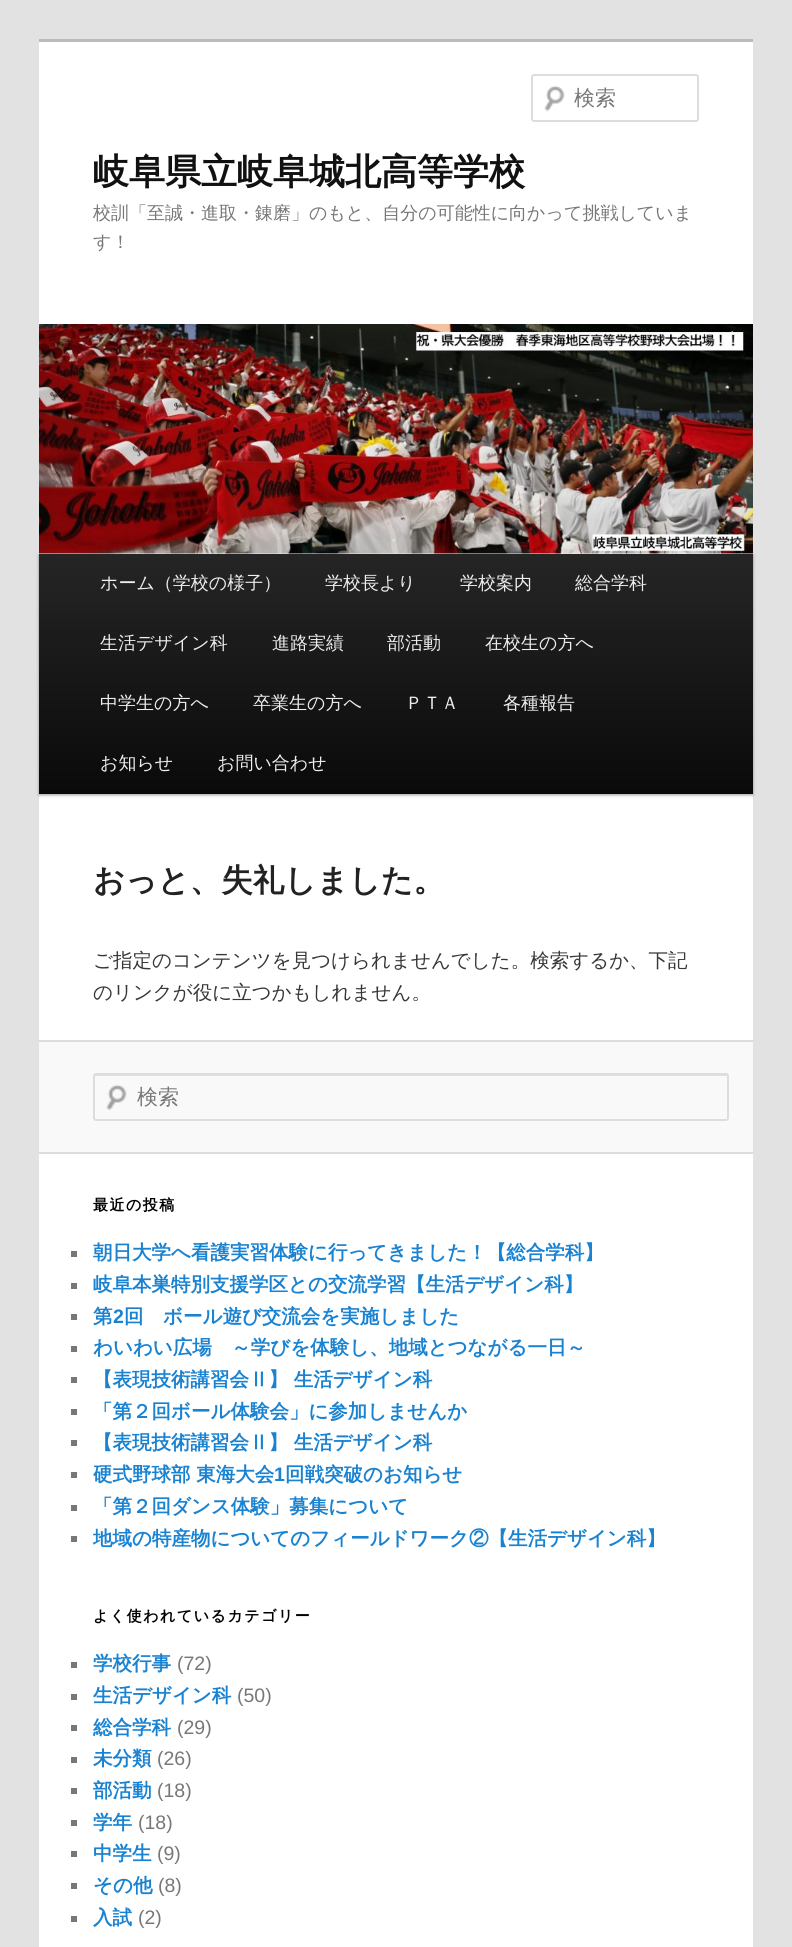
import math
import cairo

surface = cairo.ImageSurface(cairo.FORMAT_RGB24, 792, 1947)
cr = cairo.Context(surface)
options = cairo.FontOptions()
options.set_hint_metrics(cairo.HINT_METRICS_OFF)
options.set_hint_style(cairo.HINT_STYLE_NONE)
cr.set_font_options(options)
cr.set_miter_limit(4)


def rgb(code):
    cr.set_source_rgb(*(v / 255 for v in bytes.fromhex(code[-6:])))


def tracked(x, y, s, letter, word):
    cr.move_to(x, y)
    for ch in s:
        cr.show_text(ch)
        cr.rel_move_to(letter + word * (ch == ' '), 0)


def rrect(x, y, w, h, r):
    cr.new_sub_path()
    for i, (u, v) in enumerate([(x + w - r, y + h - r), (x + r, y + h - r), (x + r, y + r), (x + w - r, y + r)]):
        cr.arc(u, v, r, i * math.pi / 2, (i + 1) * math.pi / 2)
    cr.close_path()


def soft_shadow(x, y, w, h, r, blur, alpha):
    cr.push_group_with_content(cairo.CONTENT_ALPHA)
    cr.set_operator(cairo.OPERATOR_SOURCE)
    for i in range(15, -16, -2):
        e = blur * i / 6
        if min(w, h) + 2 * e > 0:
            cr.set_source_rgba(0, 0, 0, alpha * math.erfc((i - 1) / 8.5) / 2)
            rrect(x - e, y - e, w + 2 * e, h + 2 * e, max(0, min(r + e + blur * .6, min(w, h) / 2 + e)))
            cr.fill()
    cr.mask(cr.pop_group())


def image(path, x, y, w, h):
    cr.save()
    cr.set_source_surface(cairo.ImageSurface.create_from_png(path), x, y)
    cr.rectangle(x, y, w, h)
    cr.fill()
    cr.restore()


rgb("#e2e2e2")
cr.paint()
rgb("#ffffff")
cr.rectangle(39, 42, 714, 1905)
cr.fill()
rgb("#bbbbbb")
cr.rectangle(39, 39, 714, 3)
cr.fill()
image("img/1.png", 544, 85, 21, 27)
rrect(532, 75, 166, 46, 2)
rgb("#dddddd")
cr.stroke()
rgb("#000000")
soft_shadow(39, 555, 714, 240, 0, 1.5, 0.4)
image("img/2.png", 39, 324, 714, 230)
gradient = cairo.LinearGradient(396, 554, 396, 794)
gradient.add_color_stop_rgba(0, 0.145, 0.145, 0.145, 1)
gradient.add_color_stop_rgba(1, 0.039, 0.039, 0.039, 1)
cr.set_source(gradient)
cr.rectangle(39, 554, 714, 240)
cr.fill()
for x, y, w, h, color in [
    (39, 1042, 714, 110, "#f9f9f9"),
    (39, 1040, 714, 2, "#dddddd"),
    (39, 1152, 714, 2, "#dddddd"),
]:
    rgb(color)
    cr.rectangle(x, y, w, h)
    cr.fill()
image("img/3.png", 106, 1084, 21, 27)
rgb("#e0e0e0")
cr.new_path()
cr.move_to(96, 1076)
cr.line_to(726, 1076)
cr.curve_to(727, 1076, 728, 1076, 728, 1077)
cr.line_to(728, 1075)
cr.line_to(726, 1074)
cr.line_to(96, 1074)
cr.line_to(95, 1075)
cr.line_to(95, 1076)
cr.close_path()
cr.fill()
rrect(94, 1074, 634, 46, 2)
rgb("#dddddd")
cr.stroke()
for x, y, w, h, color in [
    (71, 1251, 6, 6, "#777777"),
    (71, 1283, 6, 6, "#777777"),
    (71, 1314, 6, 6, "#777777"),
    (71, 1346, 6, 6, "#777777"),
    (71, 1377, 6, 6, "#777777"),
    (71, 1409, 6, 6, "#777777"),
    (71, 1440, 6, 6, "#777777"),
    (71, 1472, 6, 6, "#777777"),
    (71, 1505, 6, 6, "#777777"),
    (71, 1536, 6, 6, "#777777"),
    (71, 1662, 6, 6, "#777777"),
    (71, 1694, 6, 6, "#777777"),
    (71, 1725, 6, 6, "#777777"),
    (71, 1757, 6, 6, "#777777"),
    (71, 1788, 6, 6, "#777777"),
    (71, 1820, 6, 6, "#777777"),
    (71, 1851, 6, 6, "#777777"),
    (71, 1883, 6, 6, "#777777"),
    (71, 1916, 6, 6, "#777777"),
]:
    rgb(color)
    cr.rectangle(x, y, w, h)
    cr.fill()
cr.select_font_face("WenQuanYi Zen Hei Medium")
cr.set_font_size(21)
cr.move_to(574, 105)
cr.show_text("検索")
cr.select_font_face("WenQuanYi Zen Hei", cairo.FONT_SLANT_NORMAL, cairo.FONT_WEIGHT_BOLD)
cr.set_font_size(36)
rgb("#111111")
cr.move_to(93, 184)
cr.show_text("岐阜県立岐阜城北高等学校")
cr.select_font_face("WenQuanYi Zen Hei Medium")
cr.set_font_size(18)
rgb("#777777")
cr.move_to(93, 219)
cr.show_text("校訓「至誠・進取・錬磨」のもと、自分の可能性に向かって挑戦していま")
cr.move_to(93, 248)
cr.show_text("す！")
rgb("#eeeeee")
for x, y, s in [
    (100, 589, "ホーム（学校の様子）"),
    (325, 589, "学校長より"),
    (460, 589, "学校案内"),
    (575, 589, "総合学科"),
    (100, 649, "生活デザイン科"),
    (272, 649, "進路実績"),
    (387, 649, "部活動"),
    (485, 649, "在校生の方へ"),
    (100, 709, "中学生の方へ"),
    (253, 709, "卒業生の方へ"),
    (405, 709, "ＰＴＡ"),
    (503, 709, "各種報告"),
    (100, 769, "お知らせ"),
    (217, 769, "お問い合わせ"),
]:
    cr.move_to(x, y)
    cr.show_text(s)
cr.select_font_face("WenQuanYi Zen Hei", cairo.FONT_SLANT_NORMAL, cairo.FONT_WEIGHT_BOLD)
cr.set_font_size(31.5)
rgb("#222222")
cr.move_to(93, 891)
cr.show_text("おっと、失礼しました。")
cr.select_font_face("WenQuanYi Zen Hei Medium")
cr.set_font_size(19.5)
rgb("#373737")
cr.move_to(93, 967)
cr.show_text("ご指定のコンテンツを見つけられませんでした。検索するか、下記")
cr.move_to(93, 999)
cr.show_text("のリンクが役に立つかもしれません。")
cr.set_font_size(21)
rgb("#777777")
cr.move_to(137, 1104)
cr.show_text("検索")
cr.select_font_face("WenQuanYi Zen Hei", cairo.FONT_SLANT_NORMAL, cairo.FONT_WEIGHT_BOLD)
cr.set_font_size(15)
rgb("#000000")
tracked(93, 1210, "最近の投稿", 1.5, 0)
cr.set_font_size(19.5)
rgb("#1982d1")
for x, y, s in [
    (93, 1259, "朝日大学へ看護実習体験に行ってきました！【総合学科】"),
    (93, 1291, "岐阜本巣特別支援学区との交流学習【生活デザイン科】"),
    (93, 1323, "第"),
]:
    cr.move_to(x, y)
    cr.show_text(s)
cr.select_font_face("Liberation Sans", cairo.FONT_SLANT_NORMAL, cairo.FONT_WEIGHT_BOLD)
cr.move_to(113, 1323)
cr.show_text("2")
cr.select_font_face("WenQuanYi Zen Hei", cairo.FONT_SLANT_NORMAL, cairo.FONT_WEIGHT_BOLD)
for x, y, s in [
    (124, 1323, "回　ボール遊び交流会を実施しました"),
    (93, 1354, "わいわい広場　～学びを体験し、地域とつながる一日～"),
    (93, 1386, "【表現技術講習会Ⅱ】 生活デザイン科"),
    (93, 1418, "「第２回ボール体験会」に参加しませんか"),
    (93, 1449, "【表現技術講習会Ⅱ】 生活デザイン科"),
    (93, 1481, "硬式野球部 東海大会"),
]:
    cr.move_to(x, y)
    cr.show_text(s)
cr.select_font_face("Liberation Sans", cairo.FONT_SLANT_NORMAL, cairo.FONT_WEIGHT_BOLD)
cr.move_to(274, 1481)
cr.show_text("1")
cr.select_font_face("WenQuanYi Zen Hei", cairo.FONT_SLANT_NORMAL, cairo.FONT_WEIGHT_BOLD)
for x, y, s in [
    (285, 1481, "回戦突破のお知らせ"),
    (93, 1513, "「第２回ダンス体験」募集について"),
    (93, 1545, "地域の特産物についてのフィールドワーク②【生活デザイン科】"),
]:
    cr.move_to(x, y)
    cr.show_text(s)
cr.set_font_size(15)
rgb("#000000")
tracked(93, 1621, "よく使われているカテゴリー", 1.5, 0)
cr.set_font_size(19.5)
rgb("#1982d1")
cr.move_to(93, 1670)
cr.show_text("学校行事")
cr.select_font_face("Liberation Sans")
rgb("#777777")
cr.move_to(177, 1670)
cr.show_text("(72)")
cr.select_font_face("WenQuanYi Zen Hei", cairo.FONT_SLANT_NORMAL, cairo.FONT_WEIGHT_BOLD)
rgb("#1982d1")
cr.move_to(93, 1702)
cr.show_text("生活デザイン科")
cr.select_font_face("Liberation Sans")
rgb("#777777")
cr.move_to(237, 1702)
cr.show_text("(50)")
cr.select_font_face("WenQuanYi Zen Hei", cairo.FONT_SLANT_NORMAL, cairo.FONT_WEIGHT_BOLD)
rgb("#1982d1")
cr.move_to(93, 1734)
cr.show_text("総合学科")
cr.select_font_face("Liberation Sans")
rgb("#777777")
cr.move_to(177, 1734)
cr.show_text("(29)")
cr.select_font_face("WenQuanYi Zen Hei", cairo.FONT_SLANT_NORMAL, cairo.FONT_WEIGHT_BOLD)
rgb("#1982d1")
cr.move_to(93, 1765)
cr.show_text("未分類")
cr.select_font_face("Liberation Sans")
rgb("#777777")
cr.move_to(157, 1765)
cr.show_text("(26)")
cr.select_font_face("WenQuanYi Zen Hei", cairo.FONT_SLANT_NORMAL, cairo.FONT_WEIGHT_BOLD)
rgb("#1982d1")
cr.move_to(93, 1797)
cr.show_text("部活動")
cr.select_font_face("Liberation Sans")
rgb("#777777")
cr.move_to(157, 1797)
cr.show_text("(18)")
cr.select_font_face("WenQuanYi Zen Hei", cairo.FONT_SLANT_NORMAL, cairo.FONT_WEIGHT_BOLD)
rgb("#1982d1")
cr.move_to(93, 1829)
cr.show_text("学年")
cr.select_font_face("Liberation Sans")
rgb("#777777")
cr.move_to(138, 1829)
cr.show_text("(18)")
cr.select_font_face("WenQuanYi Zen Hei", cairo.FONT_SLANT_NORMAL, cairo.FONT_WEIGHT_BOLD)
rgb("#1982d1")
cr.move_to(93, 1860)
cr.show_text("中学生")
cr.select_font_face("Liberation Sans")
rgb("#777777")
cr.move_to(157, 1860)
cr.show_text("(9)")
cr.select_font_face("WenQuanYi Zen Hei", cairo.FONT_SLANT_NORMAL, cairo.FONT_WEIGHT_BOLD)
rgb("#1982d1")
cr.move_to(93, 1892)
cr.show_text("その他")
cr.select_font_face("Liberation Sans")
rgb("#777777")
cr.move_to(158, 1892)
cr.show_text("(8)")
cr.select_font_face("WenQuanYi Zen Hei", cairo.FONT_SLANT_NORMAL, cairo.FONT_WEIGHT_BOLD)
rgb("#1982d1")
cr.move_to(93, 1924)
cr.show_text("入試")
cr.select_font_face("Liberation Sans")
rgb("#777777")
cr.move_to(138, 1924)
cr.show_text("(2)")
surface.write_to_png("page.png")
